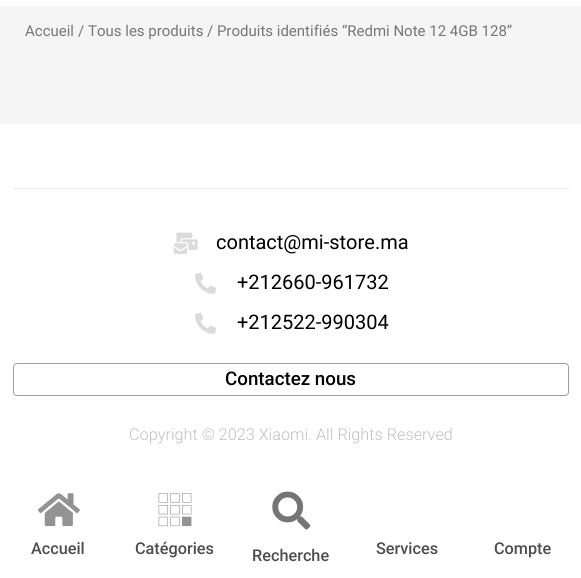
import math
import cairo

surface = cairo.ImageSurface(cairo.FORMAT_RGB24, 581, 578)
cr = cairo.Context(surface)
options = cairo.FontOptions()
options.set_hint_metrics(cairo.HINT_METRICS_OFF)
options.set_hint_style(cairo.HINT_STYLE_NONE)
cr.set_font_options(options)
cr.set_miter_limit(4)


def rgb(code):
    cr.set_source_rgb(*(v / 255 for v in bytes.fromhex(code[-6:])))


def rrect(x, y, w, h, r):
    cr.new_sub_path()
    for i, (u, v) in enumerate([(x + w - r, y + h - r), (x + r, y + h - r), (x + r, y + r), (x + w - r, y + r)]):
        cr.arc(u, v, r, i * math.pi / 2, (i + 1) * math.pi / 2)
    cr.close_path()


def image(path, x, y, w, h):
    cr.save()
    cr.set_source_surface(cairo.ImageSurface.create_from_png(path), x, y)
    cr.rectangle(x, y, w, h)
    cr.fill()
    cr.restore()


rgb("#f5f5f5")
cr.paint()
for x, y, w, h, color in [
    (0, 0, 581, 6, "#ffffff"),
    (0, 124, 581, 454, "#ffffff"),
    (13, 188, 556, 1, "#eaeaea"),
]:
    rgb(color)
    cr.rectangle(x, y, w, h)
    cr.fill()
image("img/1.png", 173, 232, 25, 22)
image("img/2.png", 195, 272, 22, 22)
image("img/2.png", 195, 312, 22, 22)
rrect(13.5, 363.5, 555, 32, 3.5)
rgb("#9e9e9e")
cr.set_line_width(1)
cr.stroke()
image("img/3.png", 37, 493, 43, 34)
image("img/4.png", 158, 493, 34, 34)
image("img/5.png", 272, 491, 39, 39)
cr.select_font_face("Roboto")
cr.set_font_size(15)
rgb("#767676")
for x, y, s in [
    (25, 36, "Accueil"),
    (78, 36, "/"),
    (88, 36, "Tous les produits"),
    (207, 36, "/ Produits identifiés “Redmi Note 12 4GB 128”"),
]:
    cr.move_to(x, y)
    cr.show_text(s)
cr.set_font_size(20)
rgb("#000000")
for x, y, s in [
    (216, 249, "contact@mi-store.ma"),
    (237, 289, "+212660-961732"),
    (237, 329, "+212522-990304"),
]:
    cr.move_to(x, y)
    cr.show_text(s)
cr.select_font_face("Roboto Medium")
cr.set_font_size(18.75)
cr.move_to(225, 385)
cr.show_text("Contactez nous")
cr.select_font_face("Roboto Light")
cr.set_font_size(16.25)
rgb("#c0c0c0")
cr.move_to(129, 440)
cr.show_text("Copyright © 2023 Xiaomi. All Rights Reserved")
cr.select_font_face("Roboto Medium")
rgb("#4d4d4d")
for x, y, s in [
    (31, 554, "Accueil"),
    (135, 554, "Catégories"),
    (252, 561, "Recherche"),
    (376, 554, "Services"),
    (494, 554, "Compte"),
]:
    cr.move_to(x, y)
    cr.show_text(s)
surface.write_to_png("page.png")
